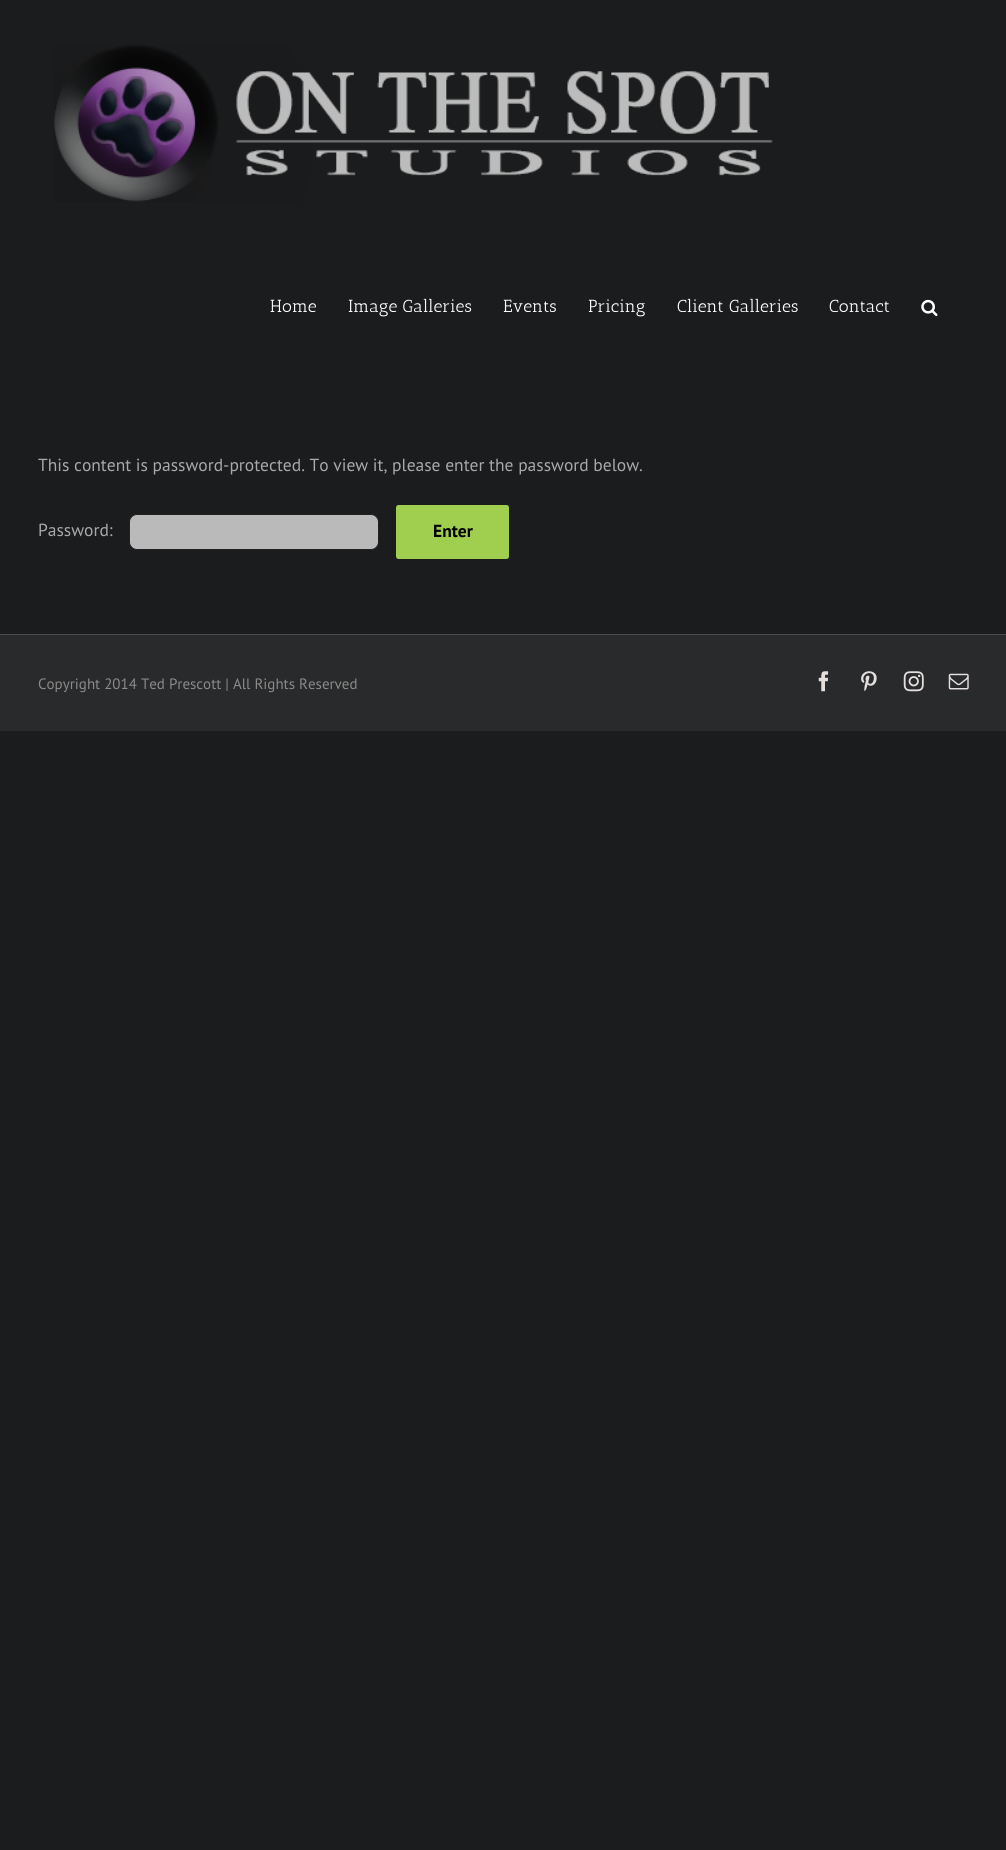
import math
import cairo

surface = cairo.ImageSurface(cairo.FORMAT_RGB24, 1006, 1850)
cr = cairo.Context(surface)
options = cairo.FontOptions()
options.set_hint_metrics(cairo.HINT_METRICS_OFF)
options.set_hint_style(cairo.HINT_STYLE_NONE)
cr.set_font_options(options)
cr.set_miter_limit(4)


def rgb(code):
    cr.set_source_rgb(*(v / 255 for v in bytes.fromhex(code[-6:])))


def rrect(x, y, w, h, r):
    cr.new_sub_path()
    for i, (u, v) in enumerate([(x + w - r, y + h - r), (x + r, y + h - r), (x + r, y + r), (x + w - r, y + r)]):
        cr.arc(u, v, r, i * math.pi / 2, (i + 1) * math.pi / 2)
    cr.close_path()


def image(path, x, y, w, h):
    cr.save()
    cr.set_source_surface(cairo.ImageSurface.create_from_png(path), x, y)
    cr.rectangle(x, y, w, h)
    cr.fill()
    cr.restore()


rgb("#1b1c1d")
cr.paint()
image("img/1.png", 54, 45, 719, 157)
image("img/2.png", 921, 299, 17, 18)
rgb("#bababa")
rrect(129.5, 514.5, 249, 35, 7.5)
cr.fill_preserve()
rgb("#212122")
cr.set_line_width(1)
cr.stroke()
rgb("#a0ce4e")
rrect(396, 505, 113, 54, 2.5)
cr.fill()
rgb("#282a2b")
cr.rectangle(0, 635, 1006, 96)
cr.fill()
rgb("#4b4c4d")
cr.rectangle(0, 634, 1006, 1)
cr.fill()
image("img/3.png", 818, 671, 11, 21)
image("img/4.png", 861, 671, 16, 21)
image("img/5.png", 903, 671, 21, 21)
image("img/6.png", 948, 673, 21, 17)
cr.select_font_face("Antic Slab")
cr.set_font_size(17.5)
rgb("#ffffff")
for x, y, s in [
    (270, 312, "Home"),
    (348, 312, "Image Galleries"),
    (503, 312, "Events"),
    (588, 312, "Pricing"),
    (677, 312, "Client Galleries"),
    (829, 312, "Contact"),
]:
    cr.move_to(x, y)
    cr.show_text(s)
cr.select_font_face("PT Sans")
rgb("#aaa9a9")
cr.move_to(38, 471)
cr.show_text("This content is password-protected. To view it, please enter the password below.")
cr.move_to(38, 536)
cr.show_text("Password:")
cr.select_font_face("PT Sans", cairo.FONT_SLANT_NORMAL, cairo.FONT_WEIGHT_BOLD)
rgb("#000000")
cr.move_to(433, 537)
cr.show_text("Enter")
cr.select_font_face("PT Sans")
cr.set_font_size(15)
rgb("#8c8989")
cr.move_to(38, 689)
cr.show_text("Copyright 2014 Ted Prescott | All Rights Reserved")
surface.write_to_png("page.png")
